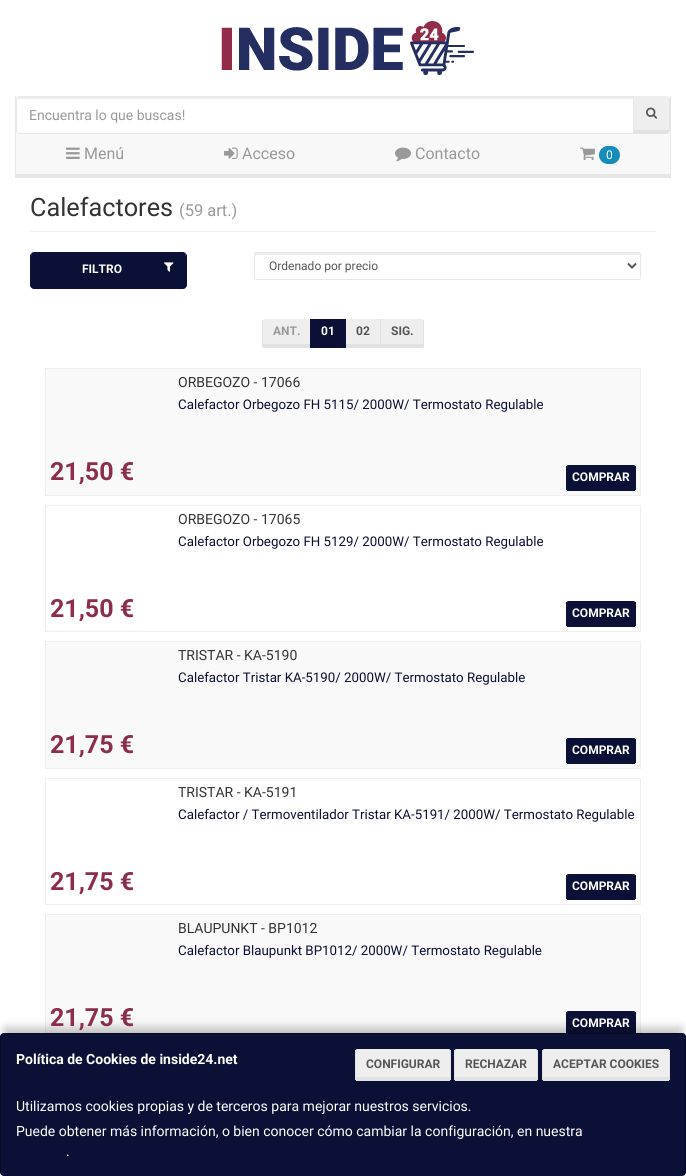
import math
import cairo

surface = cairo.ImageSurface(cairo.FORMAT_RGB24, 686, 1176)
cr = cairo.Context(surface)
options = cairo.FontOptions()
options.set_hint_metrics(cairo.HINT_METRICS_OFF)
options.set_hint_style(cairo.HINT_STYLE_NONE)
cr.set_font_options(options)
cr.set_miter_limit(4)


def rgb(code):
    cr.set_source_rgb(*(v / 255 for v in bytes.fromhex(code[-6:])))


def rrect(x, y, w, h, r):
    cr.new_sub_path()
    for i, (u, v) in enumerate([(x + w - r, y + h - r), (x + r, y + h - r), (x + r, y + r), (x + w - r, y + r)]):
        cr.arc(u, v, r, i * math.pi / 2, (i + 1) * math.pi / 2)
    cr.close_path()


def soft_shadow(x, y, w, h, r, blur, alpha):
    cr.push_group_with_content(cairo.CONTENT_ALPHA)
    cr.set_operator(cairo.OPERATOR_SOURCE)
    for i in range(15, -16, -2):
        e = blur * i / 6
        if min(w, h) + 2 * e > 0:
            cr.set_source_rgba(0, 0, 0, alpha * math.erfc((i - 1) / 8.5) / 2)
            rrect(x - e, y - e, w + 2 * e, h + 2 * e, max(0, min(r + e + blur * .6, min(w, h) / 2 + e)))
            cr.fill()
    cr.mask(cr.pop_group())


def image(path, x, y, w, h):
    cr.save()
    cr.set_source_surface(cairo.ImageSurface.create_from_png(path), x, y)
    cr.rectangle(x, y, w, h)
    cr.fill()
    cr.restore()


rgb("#ffffff")
cr.paint()
image("img/1.png", 221, 21, 253, 54)
for x, y, w, h, color in [
    (16, 96, 654, 78, "#f8f8f8"),
    (670, 96, 1, 82, "#e7e7e7"),
    (15, 174, 656, 4, "#e7e7e7"),
    (15, 96, 1, 82, "#e7e7e7"),
]:
    rgb(color)
    cr.rectangle(x, y, w, h)
    cr.fill()
rgb("#eeeeee")
cr.new_path()
cr.move_to(634, 96)
cr.line_to(666, 96)
cr.curve_to(667.5, 96, 669, 98, 669, 100)
cr.line_to(669, 130)
cr.line_to(634, 130)
cr.close_path()
cr.fill()
rgb("#e2e2e2")
cr.set_fill_rule(cairo.FILL_RULE_EVEN_ODD)
cr.new_path()
cr.move_to(633, 96)
cr.line_to(666, 96)
cr.curve_to(668, 96, 670, 98, 670, 100)
cr.line_to(670, 130)
cr.curve_to(670, 132, 668, 134, 666, 134)
cr.line_to(633, 134)
cr.close_path()
cr.move_to(634, 96)
cr.line_to(666, 96)
cr.curve_to(667.5, 96, 669, 98, 669, 100)
cr.line_to(669, 130)
cr.line_to(634, 130)
cr.close_path()
cr.fill()
rgb("#ffffff")
cr.new_path()
cr.move_to(20, 96)
cr.line_to(634, 96)
cr.line_to(634, 134)
cr.line_to(20, 134)
cr.curve_to(18, 134, 16, 132, 16, 130)
cr.line_to(16, 100)
cr.curve_to(16, 98, 18, 96, 20, 96)
cr.close_path()
cr.fill()
rgb("#ececec")
cr.set_fill_rule(cairo.FILL_RULE_WINDING)
cr.new_path()
cr.move_to(20, 99)
cr.line_to(633, 99)
cr.line_to(633, 97)
cr.line_to(20, 97)
cr.line_to(18, 98)
cr.line_to(17, 102)
cr.curve_to(17, 100, 18, 99, 20, 99)
cr.close_path()
cr.fill()
cr.new_path()
cr.move_to(20, 96.5)
cr.line_to(633.5, 96.5)
cr.line_to(633.5, 133.5)
cr.line_to(20, 133.5)
cr.curve_to(18, 133.5, 16.5, 132, 16.5, 130)
cr.line_to(16.5, 100)
cr.curve_to(16.5, 98, 18, 96.5, 20, 96.5)
cr.close_path()
rgb("#e7e7e7")
cr.set_line_width(1)
cr.stroke()
image("img/2.png", 646, 107, 12, 12)
image("img/3.png", 66, 147, 14, 12)
image("img/4.png", 224, 147, 14, 12)
image("img/5.png", 395, 147, 16, 15)
image("img/6.png", 580, 147, 15, 14)
rgb("#158cba")
rrect(599, 146, 21, 18, 9)
cr.fill()
rgb("#eeeeee")
cr.rectangle(30, 231, 626, 1)
cr.fill()
rgb("#0b1036")
cr.new_path()
cr.move_to(34, 252)
cr.line_to(183, 252)
cr.curve_to(185, 252, 186, 254, 186, 256)
cr.line_to(186, 285)
cr.line_to(31, 285)
cr.line_to(31, 256)
cr.curve_to(31, 254, 32, 252, 34, 252)
cr.close_path()
cr.fill()
cr.set_fill_rule(cairo.FILL_RULE_EVEN_ODD)
cr.new_path()
cr.move_to(34, 252)
cr.line_to(183, 252)
cr.curve_to(185, 252, 187, 254, 187, 256)
cr.line_to(187, 285)
cr.curve_to(187, 287, 185, 289, 183, 289)
cr.line_to(34, 289)
cr.curve_to(32, 289, 30, 287, 30, 285)
cr.line_to(30, 256)
cr.curve_to(30, 254, 32, 252, 34, 252)
cr.close_path()
cr.move_to(34, 252)
cr.line_to(183, 252)
cr.curve_to(185, 252, 186, 254, 186, 256)
cr.line_to(186, 285)
cr.line_to(31, 285)
cr.line_to(31, 256)
cr.curve_to(31, 254, 32, 252, 34, 252)
cr.close_path()
cr.fill()
image("img/7.png", 164, 262, 10, 10)
rgb("#ececec")
cr.set_fill_rule(cairo.FILL_RULE_WINDING)
cr.new_path()
cr.move_to(256, 255)
cr.line_to(640, 255)
cr.curve_to(640, 254, 640, 253, 639, 253)
cr.line_to(255, 253)
cr.line_to(255, 256)
cr.close_path()
cr.fill()
rrect(254.5, 252.5, 386, 27, 1.5)
rgb("#e7e7e7")
cr.stroke()
cr.new_path()
cr.move_to(628, 263.5)
cr.line_to(632, 267.5)
cr.line_to(636, 263.5)
rgb("#555555")
cr.set_line_width(2)
cr.stroke()
rgb("#eeeeee")
cr.new_path()
cr.move_to(264, 319)
cr.line_to(310, 319)
cr.line_to(310, 344)
cr.line_to(263, 344)
cr.line_to(263, 320)
cr.close_path()
cr.fill()
for x, y, w, h, color in [
    (263, 344, 48, 4, "#e2e2e2"),
    (262, 320, 1, 27, "#e2e2e2"),
    (311, 319, 34, 25, "#0b1036"),
    (380, 319, 1, 29, "#e2e2e2"),
    (345, 344, 78, 4, "#e2e2e2"),
    (345, 319, 1, 29, "#0b1036"),
    (310, 344, 36, 4, "#0b1036"),
    (310, 319, 1, 29, "#0b1036"),
    (346, 319, 34, 25, "#eeeeee"),
]:
    rgb(color)
    cr.rectangle(x, y, w, h)
    cr.fill()
cr.new_path()
cr.move_to(381, 319)
cr.line_to(422, 319)
cr.curve_to(423, 319, 423, 320, 423, 321)
cr.line_to(423, 344)
cr.line_to(381, 344)
cr.close_path()
cr.fill()
rgb("#e2e2e2")
cr.rectangle(423, 320, 1, 27)
cr.fill()
rgb("#f9f9f9")
cr.new_path()
cr.move_to(49, 368)
cr.line_to(637, 368)
cr.curve_to(639, 368, 641, 370, 641, 372)
cr.line_to(641, 496)
cr.line_to(45, 496)
cr.line_to(45, 372)
cr.curve_to(45, 370, 47, 368, 49, 368)
cr.close_path()
cr.fill()
cr.rectangle(45.5, 368.5, 595, 127)
rgb("#eeeeee")
cr.set_line_width(1)
cr.stroke()
rgb("#0b1036")
cr.new_path()
cr.move_to(568, 465)
cr.line_to(634, 465)
cr.curve_to(635, 465, 635, 466, 635, 467)
cr.line_to(635, 487)
cr.line_to(567, 487)
cr.line_to(567, 467)
cr.curve_to(567, 466, 567, 465, 568, 465)
cr.close_path()
cr.fill()
for x, y, w, h, color in [
    (635, 466, 1, 24, "#0b1036"),
    (567, 487, 68, 4, "#0b1036"),
    (566, 466, 1, 24, "#0b1036"),
]:
    rgb(color)
    cr.rectangle(x, y, w, h)
    cr.fill()
cr.rectangle(45.5, 505.5, 595, 126)
rgb("#eeeeee")
cr.stroke()
rgb("#0b1036")
cr.new_path()
cr.move_to(568, 601)
cr.line_to(634, 601)
cr.curve_to(635, 601, 635, 602, 635, 603)
cr.line_to(635, 623)
cr.line_to(567, 623)
cr.line_to(567, 603)
cr.curve_to(567, 602, 567, 601, 568, 601)
cr.close_path()
cr.fill()
for x, y, w, h, color in [
    (635, 602, 1, 24, "#0b1036"),
    (567, 623, 68, 4, "#0b1036"),
    (566, 602, 1, 24, "#0b1036"),
]:
    rgb(color)
    cr.rectangle(x, y, w, h)
    cr.fill()
rgb("#f9f9f9")
cr.rectangle(45.5, 641.5, 595, 127)
cr.fill_preserve()
rgb("#eeeeee")
cr.stroke()
rgb("#0b1036")
cr.new_path()
cr.move_to(568, 738)
cr.line_to(634, 738)
cr.curve_to(635, 738, 635, 739, 635, 740)
cr.line_to(635, 760)
cr.line_to(567, 760)
cr.line_to(567, 740)
cr.curve_to(567, 739, 567, 738, 568, 738)
cr.close_path()
cr.fill()
for x, y, w, h, color in [
    (635, 739, 1, 24, "#0b1036"),
    (567, 760, 68, 4, "#0b1036"),
    (566, 739, 1, 24, "#0b1036"),
]:
    rgb(color)
    cr.rectangle(x, y, w, h)
    cr.fill()
cr.rectangle(45.5, 778.5, 595, 126)
rgb("#eeeeee")
cr.stroke()
rgb("#0b1036")
cr.new_path()
cr.move_to(568, 874)
cr.line_to(634, 874)
cr.curve_to(635, 874, 635, 875, 635, 876)
cr.line_to(635, 896)
cr.line_to(567, 896)
cr.line_to(567, 876)
cr.curve_to(567, 875, 567, 874, 568, 874)
cr.close_path()
cr.fill()
for x, y, w, h, color in [
    (635, 875, 1, 24, "#0b1036"),
    (567, 896, 68, 4, "#0b1036"),
    (566, 875, 1, 24, "#0b1036"),
    (46, 915, 594, 118, "#f9f9f9"),
]:
    rgb(color)
    cr.rectangle(x, y, w, h)
    cr.fill()
cr.rectangle(45.5, 914.5, 595, 127)
rgb("#eeeeee")
cr.stroke()
rgb("#0b1036")
cr.new_path()
cr.move_to(568, 1011)
cr.line_to(634, 1011)
cr.curve_to(635, 1011, 635, 1012, 635, 1013)
cr.line_to(635, 1033)
cr.line_to(567, 1033)
cr.line_to(567, 1013)
cr.curve_to(567, 1012, 567, 1011, 568, 1011)
cr.close_path()
cr.fill()
cr.rectangle(635, 1012, 1, 24)
cr.fill()
cr.rectangle(566, 1012, 1, 24)
cr.fill()
rgb("#000000")
soft_shadow(5, 1028, 676, 133, 0, 5, 0.25)
rgb("#0b1036")
rrect(0, 1033, 686, 143, 4)
cr.fill()
cr.set_source_rgba(0, 0, 0, 0.4)
cr.set_fill_rule(cairo.FILL_RULE_EVEN_ODD)
cr.new_path()
cr.move_to(4, 1033)
cr.line_to(682, 1033)
cr.curve_to(684, 1033, 686, 1035, 686, 1037)
cr.line_to(686, 1172)
cr.curve_to(686, 1174, 684, 1176, 682, 1176)
cr.line_to(4, 1176)
cr.curve_to(2, 1176, 0, 1174, 0, 1172)
cr.line_to(0, 1037)
cr.curve_to(0, 1035, 2, 1033, 4, 1033)
cr.close_path()
cr.move_to(4, 1034)
cr.line_to(682, 1034)
cr.curve_to(684, 1034, 685, 1035, 685, 1037)
cr.line_to(685, 1172)
cr.curve_to(685, 1174, 684, 1176, 682, 1176)
cr.line_to(4, 1176)
cr.curve_to(2, 1176, 1, 1174, 1, 1172)
cr.line_to(1, 1037)
cr.curve_to(1, 1035, 2, 1034, 4, 1034)
cr.close_path()
cr.fill()
rgb("#eeeeee")
cr.set_fill_rule(cairo.FILL_RULE_WINDING)
cr.new_path()
cr.move_to(357, 1049)
cr.line_to(449, 1049)
cr.curve_to(450, 1049, 450, 1050, 450, 1051)
cr.line_to(450, 1077)
cr.line_to(356, 1077)
cr.line_to(356, 1051)
cr.curve_to(356, 1050, 356, 1049, 357, 1049)
cr.close_path()
cr.fill()
for x, y, w, h, color in [
    (450, 1050, 1, 30, "#e2e2e2"),
    (356, 1077, 94, 4, "#e2e2e2"),
    (355, 1050, 1, 30, "#e2e2e2"),
]:
    rgb(color)
    cr.rectangle(x, y, w, h)
    cr.fill()
rgb("#eeeeee")
cr.new_path()
cr.move_to(456, 1049)
cr.line_to(536, 1049)
cr.curve_to(537, 1049, 537, 1050, 537, 1051)
cr.line_to(537, 1077)
cr.line_to(455, 1077)
cr.line_to(455, 1051)
cr.curve_to(455, 1050, 455, 1049, 456, 1049)
cr.close_path()
cr.fill()
for x, y, w, h, color in [
    (537, 1050, 1, 30, "#e2e2e2"),
    (455, 1077, 82, 4, "#e2e2e2"),
    (454, 1050, 1, 30, "#e2e2e2"),
]:
    rgb(color)
    cr.rectangle(x, y, w, h)
    cr.fill()
rgb("#eeeeee")
cr.new_path()
cr.move_to(544, 1049)
cr.line_to(668, 1049)
cr.curve_to(669, 1049, 669, 1050, 669, 1051)
cr.line_to(669, 1077)
cr.line_to(543, 1077)
cr.line_to(543, 1051)
cr.curve_to(543, 1050, 543, 1049, 544, 1049)
cr.close_path()
cr.fill()
for x, y, w, h, color in [
    (669, 1050, 1, 30, "#e2e2e2"),
    (543, 1077, 126, 4, "#e2e2e2"),
    (542, 1050, 1, 30, "#e2e2e2"),
]:
    rgb(color)
    cr.rectangle(x, y, w, h)
    cr.fill()
cr.select_font_face("Roboto")
cr.set_font_size(14)
rgb("#999999")
cr.move_to(29, 120)
cr.show_text("Encuentra lo que buscas!")
cr.set_font_size(16)
for x, y, s in [
    (84, 159, "Menú"),
    (242, 159, "Acceso"),
    (415, 159, "Contacto"),
]:
    cr.move_to(x, y)
    cr.show_text(s)
cr.set_font_size(12)
rgb("#ffffff")
cr.move_to(606, 159)
cr.show_text("0")
cr.set_font_size(25.25)
rgb("#333333")
cr.move_to(30, 216)
cr.show_text("Calefactores")
cr.set_font_size(16.5)
rgb("#999999")
cr.move_to(179, 216)
cr.show_text("(59 art.)")
cr.select_font_face("Roboto", cairo.FONT_SLANT_NORMAL, cairo.FONT_WEIGHT_BOLD)
cr.set_font_size(12)
rgb("#ffffff")
cr.move_to(82, 273)
cr.show_text("FILTRO")
cr.select_font_face("Roboto")
rgb("#555555")
cr.move_to(269, 270)
cr.show_text("Ordenado por precio")
cr.select_font_face("Roboto", cairo.FONT_SLANT_NORMAL, cairo.FONT_WEIGHT_BOLD)
rgb("#999999")
cr.move_to(273, 335)
cr.show_text("ANT.")
rgb("#ffffff")
cr.move_to(321, 335)
cr.show_text("01")
rgb("#555555")
cr.move_to(356, 335)
cr.show_text("02")
cr.move_to(391, 335)
cr.show_text("SIG.")
cr.select_font_face("Roboto")
cr.set_font_size(14)
rgb("#333333")
cr.move_to(178, 387)
cr.show_text("ORBEGOZO - 17066")
cr.set_font_size(13.3)
rgb("#0b1036")
cr.move_to(178, 409)
cr.show_text("Calefactor Orbegozo FH 5115/ 2000W/ Termostato Regulable")
cr.select_font_face("Roboto", cairo.FONT_SLANT_NORMAL, cairo.FONT_WEIGHT_BOLD)
cr.set_font_size(25)
rgb("#8c2d4d")
cr.move_to(50, 480)
cr.show_text("21,50 €")
cr.set_font_size(12)
rgb("#ffffff")
cr.move_to(572, 481)
cr.show_text("COMPRAR")
cr.select_font_face("Roboto")
cr.set_font_size(14)
rgb("#333333")
cr.move_to(178, 524)
cr.show_text("ORBEGOZO - 17065")
cr.set_font_size(13.3)
rgb("#0b1036")
cr.move_to(178, 546)
cr.show_text("Calefactor Orbegozo FH 5129/ 2000W/ Termostato Regulable")
cr.select_font_face("Roboto", cairo.FONT_SLANT_NORMAL, cairo.FONT_WEIGHT_BOLD)
cr.set_font_size(25)
rgb("#8c2d4d")
cr.move_to(50, 617)
cr.show_text("21,50 €")
cr.set_font_size(12)
rgb("#ffffff")
cr.move_to(572, 617)
cr.show_text("COMPRAR")
cr.select_font_face("Roboto")
cr.set_font_size(14)
rgb("#333333")
cr.move_to(178, 660)
cr.show_text("TRISTAR - KA-5190")
cr.set_font_size(13.3)
rgb("#0b1036")
cr.move_to(178, 682)
cr.show_text("Calefactor Tristar KA-5190/ 2000W/ Termostato Regulable")
cr.select_font_face("Roboto", cairo.FONT_SLANT_NORMAL, cairo.FONT_WEIGHT_BOLD)
cr.set_font_size(25)
rgb("#8c2d4d")
cr.move_to(50, 753)
cr.show_text("21,75 €")
cr.set_font_size(12)
rgb("#ffffff")
cr.move_to(572, 754)
cr.show_text("COMPRAR")
cr.select_font_face("Roboto")
cr.set_font_size(14)
rgb("#333333")
cr.move_to(178, 797)
cr.show_text("TRISTAR - KA-5191")
cr.set_font_size(13.3)
rgb("#0b1036")
cr.move_to(178, 819)
cr.show_text("Calefactor / Termoventilador Tristar KA-5191/ 2000W/ Termostato Regulable")
cr.select_font_face("Roboto", cairo.FONT_SLANT_NORMAL, cairo.FONT_WEIGHT_BOLD)
cr.set_font_size(25)
rgb("#8c2d4d")
cr.move_to(50, 890)
cr.show_text("21,75 €")
cr.set_font_size(12)
rgb("#ffffff")
cr.move_to(572, 890)
cr.show_text("COMPRAR")
cr.select_font_face("Roboto")
cr.set_font_size(14)
rgb("#333333")
cr.move_to(178, 933)
cr.show_text("BLAUPUNKT - BP1012")
cr.set_font_size(13.3)
rgb("#0b1036")
cr.move_to(178, 955)
cr.show_text("Calefactor Blaupunkt BP1012/ 2000W/ Termostato Regulable")
cr.select_font_face("Roboto", cairo.FONT_SLANT_NORMAL, cairo.FONT_WEIGHT_BOLD)
cr.set_font_size(25)
rgb("#8c2d4d")
cr.move_to(50, 1026)
cr.show_text("21,75 €")
cr.set_font_size(12)
rgb("#ffffff")
cr.move_to(572, 1027)
cr.show_text("COMPRAR")
cr.set_font_size(14)
cr.move_to(16, 1064)
cr.show_text("Política de Cookies de inside24.net")
cr.set_font_size(12)
rgb("#555555")
for x, y, s in [
    (366, 1068, "CONFIGURAR"),
    (465, 1068, "RECHAZAR"),
    (553, 1068, "ACEPTAR COOKIES"),
]:
    cr.move_to(x, y)
    cr.show_text(s)
cr.select_font_face("Roboto")
cr.set_font_size(14)
rgb("#ffffff")
for x, y, s in [
    (16, 1111, "Utilizamos cookies propias y de terceros para mejorar nuestros servicios."),
    (16, 1136, "Puede obtener más información, o bien conocer cómo cambiar la configuración, en nuestra"),
    (66, 1156, "."),
]:
    cr.move_to(x, y)
    cr.show_text(s)
surface.write_to_png("page.png")
